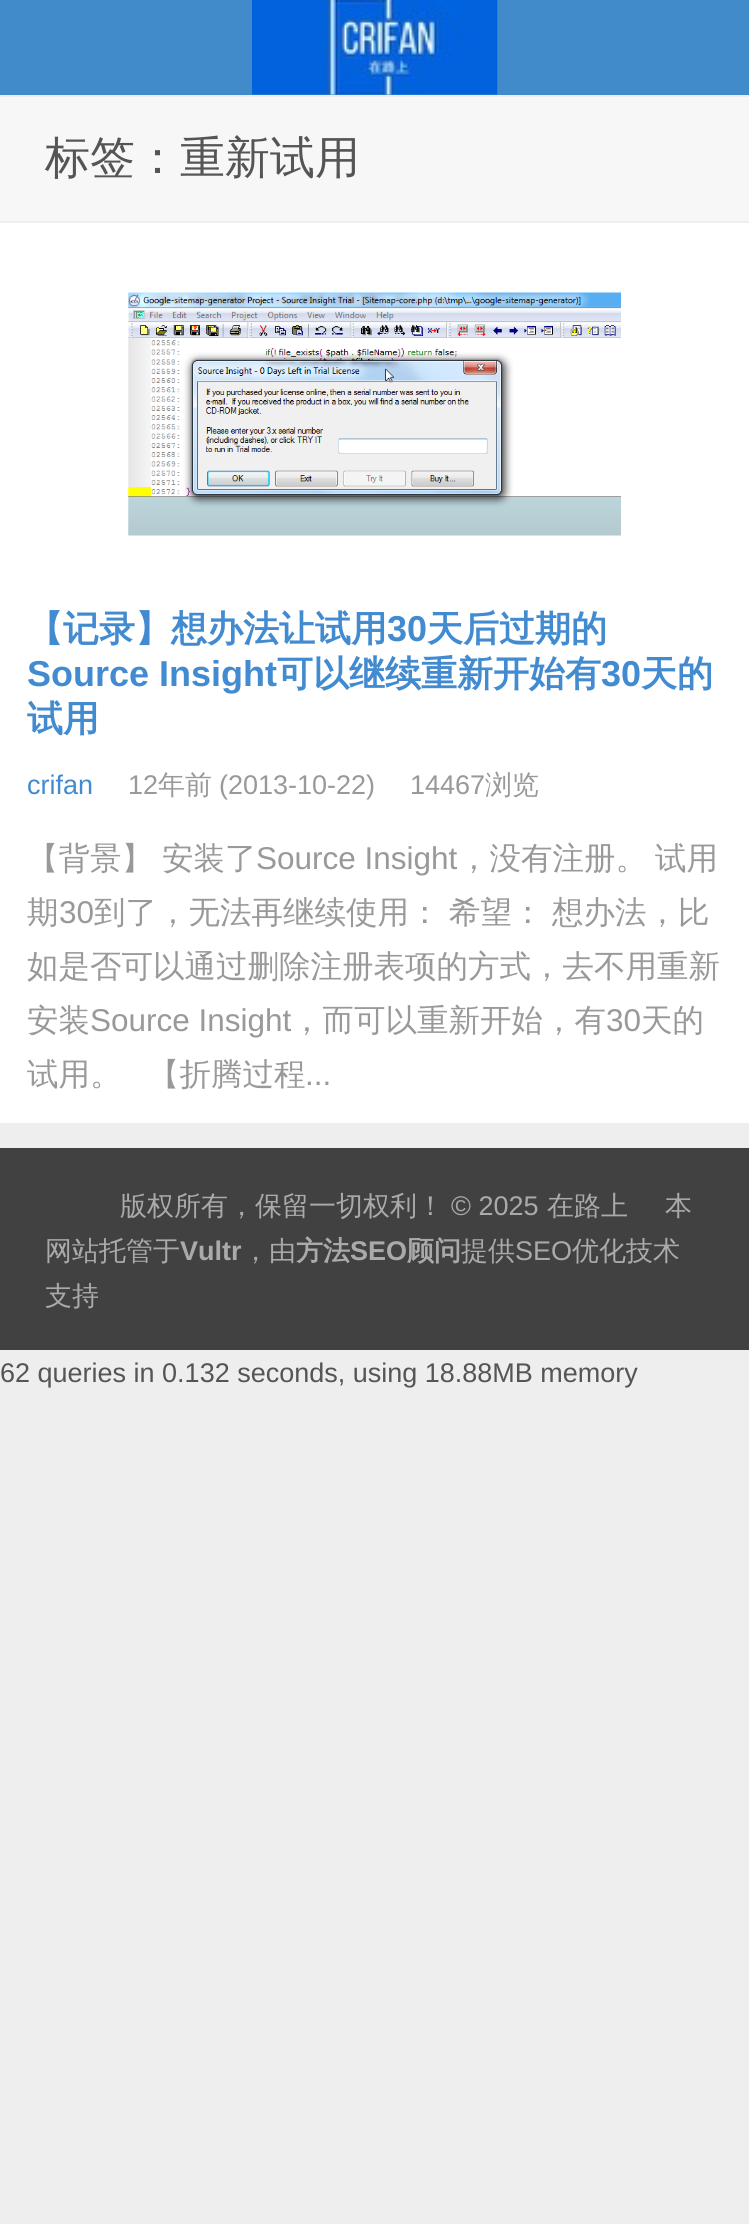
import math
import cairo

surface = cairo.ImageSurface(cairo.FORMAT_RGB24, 749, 2224)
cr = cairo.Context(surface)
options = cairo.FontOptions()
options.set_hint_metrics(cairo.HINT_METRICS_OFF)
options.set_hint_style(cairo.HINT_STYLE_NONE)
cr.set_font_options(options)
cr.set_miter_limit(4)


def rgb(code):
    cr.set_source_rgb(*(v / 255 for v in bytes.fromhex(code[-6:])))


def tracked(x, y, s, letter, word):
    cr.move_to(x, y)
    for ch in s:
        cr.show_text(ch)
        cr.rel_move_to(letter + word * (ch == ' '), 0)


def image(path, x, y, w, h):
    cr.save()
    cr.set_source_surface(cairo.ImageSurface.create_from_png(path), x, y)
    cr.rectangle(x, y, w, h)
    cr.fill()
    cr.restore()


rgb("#eeeeee")
cr.paint()
rgb("#428bca")
cr.rectangle(0, 0, 749, 95)
cr.fill()
image("img/1.png", 252, 0, 246, 95)
rgb("#f7f7f7")
cr.rectangle(0, 97, 749, 124)
cr.fill()
rgb("#ffffff")
cr.rectangle(0, 223, 749, 900)
cr.fill()
image("img/2.png", 128, 292, 493, 244)
rgb("#414141")
cr.rectangle(0, 1148, 749, 202)
cr.fill()
cr.select_font_face("WenQuanYi Zen Hei Medium")
cr.set_font_size(45)
rgb("#555555")
cr.move_to(45, 173)
cr.show_text("标签：重新试用")
cr.select_font_face("WenQuanYi Zen Hei", cairo.FONT_SLANT_NORMAL, cairo.FONT_WEIGHT_BOLD)
cr.set_font_size(36)
rgb("#428bd1")
cr.move_to(27, 641)
cr.show_text("【记录】想办法让试用")
cr.select_font_face("Liberation Sans", cairo.FONT_SLANT_NORMAL, cairo.FONT_WEIGHT_BOLD)
cr.move_to(387, 641)
cr.show_text("30")
cr.select_font_face("WenQuanYi Zen Hei", cairo.FONT_SLANT_NORMAL, cairo.FONT_WEIGHT_BOLD)
cr.move_to(427, 641)
cr.show_text("天后过期的")
cr.select_font_face("Liberation Sans", cairo.FONT_SLANT_NORMAL, cairo.FONT_WEIGHT_BOLD)
cr.move_to(27, 686)
cr.show_text("Source Insight")
cr.select_font_face("WenQuanYi Zen Hei", cairo.FONT_SLANT_NORMAL, cairo.FONT_WEIGHT_BOLD)
cr.move_to(277, 686)
cr.show_text("可以继续重新开始有")
cr.select_font_face("Liberation Sans", cairo.FONT_SLANT_NORMAL, cairo.FONT_WEIGHT_BOLD)
cr.move_to(601, 686)
cr.show_text("30")
cr.select_font_face("WenQuanYi Zen Hei", cairo.FONT_SLANT_NORMAL, cairo.FONT_WEIGHT_BOLD)
cr.move_to(641, 686)
cr.show_text("天的")
cr.move_to(27, 731)
cr.show_text("试用")
cr.select_font_face("Liberation Sans")
cr.set_font_size(27)
cr.move_to(27, 794)
cr.show_text("crifan")
rgb("#999999")
cr.move_to(128, 794)
cr.show_text("12")
cr.select_font_face("WenQuanYi Zen Hei Medium")
cr.move_to(158, 794)
cr.show_text("年前")
cr.select_font_face("Liberation Sans")
cr.move_to(219, 794)
cr.show_text("(2013-10-22)")
cr.move_to(410, 794)
cr.show_text("14467")
cr.select_font_face("WenQuanYi Zen Hei Medium")
cr.move_to(485, 794)
cr.show_text("浏览")
cr.set_font_size(31.5)
cr.move_to(27, 869)
cr.show_text("【背景】")
cr.move_to(162, 869)
cr.show_text("安装了")
cr.select_font_face("Liberation Sans")
cr.move_to(256, 869)
cr.show_text("Source Insight")
cr.select_font_face("WenQuanYi Zen Hei Medium")
for x, y, s in [
    (458, 869, "，没有注册。"),
    (655, 869, "试用"),
    (27, 923, "期"),
]:
    cr.move_to(x, y)
    cr.show_text(s)
cr.select_font_face("Liberation Sans")
cr.move_to(59, 923)
cr.show_text("30")
cr.select_font_face("WenQuanYi Zen Hei Medium")
cr.move_to(94, 923)
cr.show_text("到了，无法再继续使用：")
tracked(449, 923, "希望： 想办法，比", 0, -1)
cr.move_to(27, 977)
cr.show_text("如是否可以通过删除注册表项的方式，去不用重新")
cr.move_to(27, 1031)
cr.show_text("安装")
cr.select_font_face("Liberation Sans")
cr.move_to(90, 1031)
cr.show_text("Source Insight")
cr.select_font_face("WenQuanYi Zen Hei Medium")
cr.move_to(291, 1031)
cr.show_text("，而可以重新开始，有")
cr.select_font_face("Liberation Sans")
cr.move_to(606, 1031)
cr.show_text("30")
cr.select_font_face("WenQuanYi Zen Hei Medium")
for x, y, s in [
    (641, 1031, "天的"),
    (27, 1085, "试用。"),
    (148, 1085, "【折腾过程"),
]:
    cr.move_to(x, y)
    cr.show_text(s)
cr.select_font_face("Liberation Sans")
cr.move_to(305, 1085)
cr.show_text("...")
cr.select_font_face("WenQuanYi Zen Hei Medium")
cr.set_font_size(27)
rgb("#aaaaaa")
cr.move_to(120, 1215)
cr.show_text("版权所有，保留一切权利！")
cr.select_font_face("Liberation Sans")
cr.move_to(451, 1215)
cr.show_text("© 2025")
cr.select_font_face("WenQuanYi Zen Hei Medium")
for x, y, s in [
    (547, 1215, "在路上"),
    (665, 1215, "本"),
    (45, 1260, "网站托管于"),
]:
    cr.move_to(x, y)
    cr.show_text(s)
cr.select_font_face("Liberation Sans", cairo.FONT_SLANT_NORMAL, cairo.FONT_WEIGHT_BOLD)
cr.move_to(180, 1260)
cr.show_text("Vultr")
cr.select_font_face("WenQuanYi Zen Hei Medium")
cr.move_to(242, 1260)
cr.show_text("，由")
cr.select_font_face("WenQuanYi Zen Hei", cairo.FONT_SLANT_NORMAL, cairo.FONT_WEIGHT_BOLD)
cr.move_to(296, 1260)
cr.show_text("方法")
cr.select_font_face("Liberation Sans", cairo.FONT_SLANT_NORMAL, cairo.FONT_WEIGHT_BOLD)
cr.move_to(350, 1260)
cr.show_text("SEO")
cr.select_font_face("WenQuanYi Zen Hei", cairo.FONT_SLANT_NORMAL, cairo.FONT_WEIGHT_BOLD)
cr.move_to(407, 1260)
cr.show_text("顾问")
cr.select_font_face("WenQuanYi Zen Hei Medium")
cr.move_to(461, 1260)
cr.show_text("提供")
cr.select_font_face("Liberation Sans")
cr.move_to(515, 1260)
cr.show_text("SEO")
cr.select_font_face("WenQuanYi Zen Hei Medium")
cr.move_to(572, 1260)
cr.show_text("优化技术")
cr.move_to(45, 1305)
cr.show_text("支持")
cr.select_font_face("Liberation Sans")
rgb("#555555")
cr.move_to(0, 1382)
cr.show_text("62 queries in 0.132 seconds, using 18.88MB memory")
surface.write_to_png("page.png")
